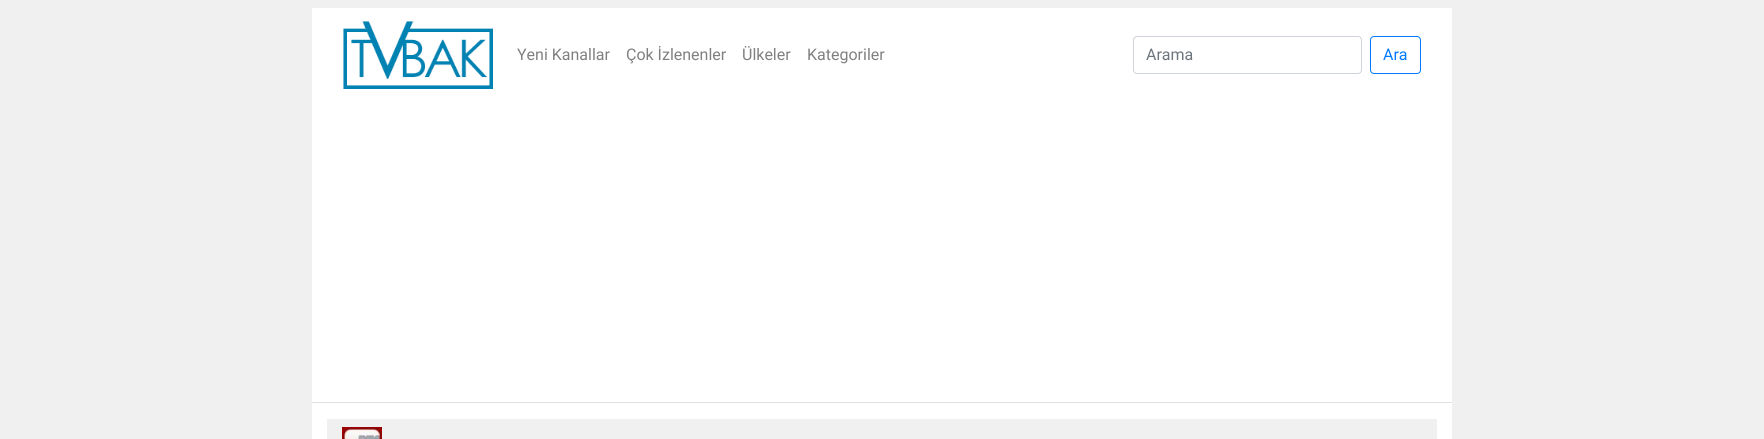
import math
import cairo

surface = cairo.ImageSurface(cairo.FORMAT_RGB24, 1764, 439)
cr = cairo.Context(surface)
options = cairo.FontOptions()
options.set_hint_metrics(cairo.HINT_METRICS_OFF)
options.set_hint_style(cairo.HINT_STYLE_NONE)
cr.set_font_options(options)
cr.set_miter_limit(4)


def rgb(code):
    cr.set_source_rgb(*(v / 255 for v in bytes.fromhex(code[-6:])))


def rrect(x, y, w, h, r):
    cr.new_sub_path()
    for i, (u, v) in enumerate([(x + w - r, y + h - r), (x + r, y + h - r), (x + r, y + r), (x + w - r, y + r)]):
        cr.arc(u, v, r, i * math.pi / 2, (i + 1) * math.pi / 2)
    cr.close_path()


def image(path, x, y, w, h):
    cr.save()
    cr.set_source_surface(cairo.ImageSurface.create_from_png(path), x, y)
    cr.rectangle(x, y, w, h)
    cr.fill()
    cr.restore()


rgb("#f0f0f0")
cr.paint()
rgb("#ffffff")
cr.rectangle(312, 8, 1140, 431)
cr.fill()
rgb("#dee2e6")
cr.rectangle(312, 402, 1140, 1)
cr.fill()
image("img/1.png", 343, 21, 150, 68)
rrect(1133.5, 36.5, 228, 37, 3.5)
rgb("#ced4da")
cr.set_line_width(1)
cr.stroke()
rrect(1370.5, 36.5, 50, 37, 3.5)
rgb("#007bff")
cr.stroke()
rgb("#f0f0f0")
cr.rectangle(327, 419, 1110, 20)
cr.fill()
image("img/2.png", 342, 427, 40, 12)
cr.select_font_face("Roboto")
cr.set_font_size(16)
rgb("#808080")
for x, y, s in [
    (517, 60, "Yeni Kanallar"),
    (626, 60, "Çok İzlenenler"),
    (742, 60, "Ülkeler"),
    (807, 60, "Kategoriler"),
]:
    cr.move_to(x, y)
    cr.show_text(s)
rgb("#6c757d")
cr.move_to(1146, 60)
cr.show_text("Arama")
rgb("#007bff")
cr.move_to(1383, 60)
cr.show_text("Ara")
surface.write_to_png("page.png")
